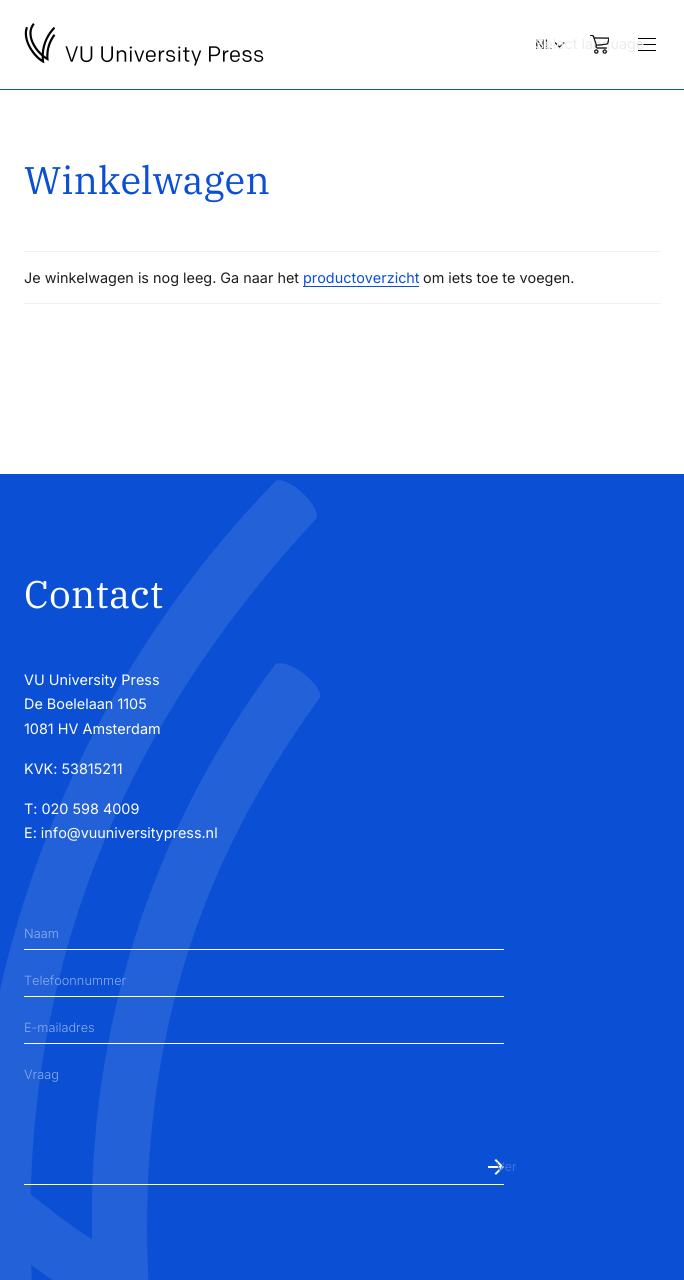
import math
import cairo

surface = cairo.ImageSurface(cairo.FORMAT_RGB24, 684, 1280)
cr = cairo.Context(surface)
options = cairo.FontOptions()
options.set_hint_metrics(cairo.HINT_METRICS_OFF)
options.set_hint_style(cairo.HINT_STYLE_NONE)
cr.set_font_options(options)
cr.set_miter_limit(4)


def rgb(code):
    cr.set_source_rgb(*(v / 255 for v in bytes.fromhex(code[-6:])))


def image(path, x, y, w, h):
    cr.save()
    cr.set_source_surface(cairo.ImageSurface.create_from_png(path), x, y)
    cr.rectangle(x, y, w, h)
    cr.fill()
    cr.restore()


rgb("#ffffff")
cr.paint()
rgb("#0a4fd4")
cr.rectangle(0, 89, 684, 1)
cr.fill()
image("img/1.png", 24, 23, 240, 43)
image("img/3.png", 554, 42, 11, 6)
for x, y, w, h, color in [
    (638, 38, 18, 1, "#000000"),
    (638, 44, 18, 1, "#000000"),
    (638, 50, 18, 1, "#000000"),
    (24, 251, 637, 1, "#f2efed"),
    (24, 303, 637, 1, "#f2efed"),
    (303, 286, 116, 1, "#0a4fd4"),
    (0, 474, 684, 806, "#0a4fd4"),
]:
    rgb(color)
    cr.rectangle(x, y, w, h)
    cr.fill()
image("img/4.png", 0, 480, 320, 800)
for x, y, w, h, color in [
    (24, 949, 480, 1, "#ffffff"),
    (24, 996, 480, 1, "#ffffff"),
    (24, 1043, 480, 1, "#ffffff"),
]:
    rgb(color)
    cr.rectangle(x, y, w, h)
    cr.fill()
image("img/5.png", 488, 1159, 16, 16)
cr.rectangle(24, 1184, 480, 1)
cr.fill()
cr.select_font_face("Inter")
cr.set_font_size(13)
rgb("#1d1d1b")
cr.move_to(535, 49)
cr.show_text("NL")
cr.set_font_size(14.4)
rgb("#ececeb")
cr.move_to(535, 49)
cr.show_text("Select language")
image("img/2.png", 590, 35, 19, 19)
cr.select_font_face("IBM Plex Serif")
cr.set_font_size(38.5)
rgb("#0a4fd4")
cr.move_to(24, 194)
cr.show_text("Winkelwagen")
cr.select_font_face("Inter")
cr.set_font_size(14.4)
rgb("#1d1d1b")
cr.move_to(24, 283)
cr.show_text("Je winkelwagen is nog leeg. Ga naar het")
rgb("#0a4fd4")
cr.move_to(303, 283)
cr.show_text("productoverzicht")
rgb("#1d1d1b")
cr.move_to(423, 283)
cr.show_text("om iets toe te voegen.")
cr.select_font_face("IBM Plex Serif")
cr.set_font_size(38.5)
rgb("#ffffff")
cr.move_to(24, 608)
cr.show_text("Contact")
cr.select_font_face("Inter")
cr.set_font_size(14.4)
for x, y, s in [
    (24, 685, "VU University Press"),
    (24, 709, "De Boelelaan 1105"),
    (24, 734, "1081 HV Amsterdam"),
    (24, 774, "KVK: 53815211"),
    (24, 814, "T: 020 598 4009"),
    (24, 838, "E: info@vuuniversitypress.nl"),
]:
    cr.move_to(x, y)
    cr.show_text(s)
cr.select_font_face("Inter Light")
cr.set_font_size(12.75)
rgb("#91b0ec")
cr.move_to(24, 938)
cr.show_text("Naam")
rgb("#89aaea")
for x, y, s in [
    (24, 985, "Telefoonnummer"),
    (24, 1032, "E-mailadres"),
    (24, 1079, "Vraag"),
]:
    cr.move_to(x, y)
    cr.show_text(s)
cr.select_font_face("Liberation Sans")
cr.set_font_size(13)
rgb("#3c73dd")
cr.move_to(496, 1171)
cr.show_text("Ver")
surface.write_to_png("page.png")
